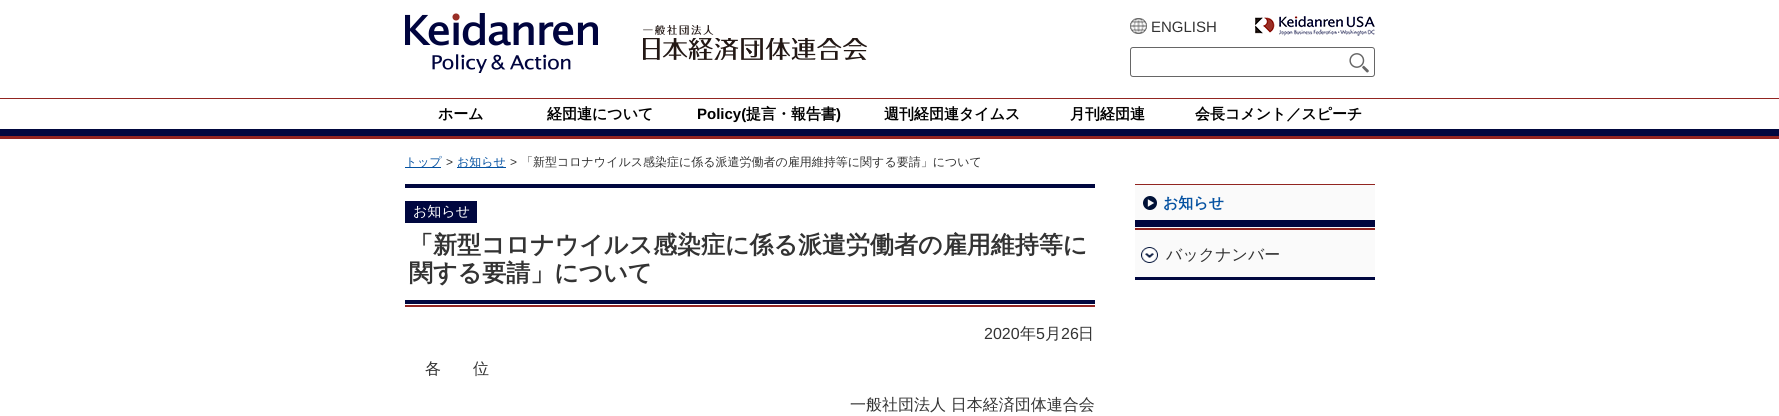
import math
import cairo

surface = cairo.ImageSurface(cairo.FORMAT_RGB24, 1779, 416)
cr = cairo.Context(surface)
options = cairo.FontOptions()
options.set_hint_metrics(cairo.HINT_METRICS_OFF)
options.set_hint_style(cairo.HINT_STYLE_NONE)
cr.set_font_options(options)
cr.set_miter_limit(4)


def rgb(code):
    cr.set_source_rgb(*(v / 255 for v in bytes.fromhex(code[-6:])))


def tracked(x, y, s, letter, word):
    cr.move_to(x, y)
    for ch in s:
        cr.show_text(ch)
        cr.rel_move_to(letter + word * (ch == ' '), 0)


def rrect(x, y, w, h, r):
    cr.new_sub_path()
    for i, (u, v) in enumerate([(x + w - r, y + h - r), (x + r, y + h - r), (x + r, y + r), (x + w - r, y + r)]):
        cr.arc(u, v, r, i * math.pi / 2, (i + 1) * math.pi / 2)
    cr.close_path()


def image(path, x, y, w, h):
    cr.save()
    cr.set_source_surface(cairo.ImageSurface.create_from_png(path), x, y)
    cr.rectangle(x, y, w, h)
    cr.fill()
    cr.restore()


rgb("#ffffff")
cr.paint()
rgb("#922521")
cr.rectangle(0, 136, 1779, 3)
cr.fill()
image("img/1.png", 405, 13, 193, 60)
image("img/2.png", 643, 25, 224, 35)
image("img/3.png", 1130, 18, 17, 16)
image("img/4.png", 1255, 16, 120, 20)
rrect(1130.5, 47.5, 244, 29, 2.5)
rgb("#666666")
cr.set_line_width(1)
cr.stroke()
image("img/5.png", 1349, 53, 20, 20)
for x, y, w, h, color in [
    (0, 98, 1779, 1, "#922521"),
    (0, 129, 1779, 7, "#00073f"),
    (405, 167, 36, 1, "#0451a1"),
    (457, 167, 49, 1, "#0451a1"),
    (405, 184, 690, 4, "#00073f"),
    (405, 300, 690, 4, "#00073f"),
    (405, 201, 72, 22, "#00073f"),
    (405, 305, 690, 2, "#922521"),
    (1135, 185, 240, 92, "#fafafa"),
    (1135, 277, 240, 3, "#00073f"),
]:
    rgb(color)
    cr.rectangle(x, y, w, h)
    cr.fill()
image("img/6.png", 1143, 196, 14, 14)
for x, y, w, h, color in [
    (1135, 184, 240, 1, "#922521"),
    (1135, 220, 240, 7, "#00073f"),
    (1135, 228, 240, 2, "#922521"),
]:
    rgb(color)
    cr.rectangle(x, y, w, h)
    cr.fill()
image("img/7.png", 1141, 247, 17, 16)
cr.select_font_face("Liberation Sans")
cr.set_font_size(15)
rgb("#333333")
cr.move_to(1151, 32)
cr.show_text("ENGLISH")
cr.select_font_face("WenQuanYi Zen Hei", cairo.FONT_SLANT_NORMAL, cairo.FONT_WEIGHT_BOLD)
rgb("#000000")
cr.move_to(438, 119)
cr.show_text("ホーム")
cr.move_to(547, 119)
cr.show_text("経団連について")
cr.select_font_face("Liberation Sans", cairo.FONT_SLANT_NORMAL, cairo.FONT_WEIGHT_BOLD)
cr.move_to(697, 119)
cr.show_text("Policy(")
cr.select_font_face("WenQuanYi Zen Hei", cairo.FONT_SLANT_NORMAL, cairo.FONT_WEIGHT_BOLD)
cr.move_to(746, 119)
cr.show_text("提言・報告書")
cr.select_font_face("Liberation Sans", cairo.FONT_SLANT_NORMAL, cairo.FONT_WEIGHT_BOLD)
cr.move_to(836, 119)
cr.show_text(")")
cr.select_font_face("WenQuanYi Zen Hei", cairo.FONT_SLANT_NORMAL, cairo.FONT_WEIGHT_BOLD)
for x, y, s in [
    (884, 119, "週刊経団連タイムス"),
    (1070, 119, "月刊経団連"),
    (1195, 119, "会長コメント／スピーチ"),
]:
    cr.move_to(x, y)
    cr.show_text(s)
cr.select_font_face("WenQuanYi Zen Hei Medium")
cr.set_font_size(12)
rgb("#0451a1")
cr.move_to(405, 166)
cr.show_text("トップ")
cr.select_font_face("Liberation Sans")
rgb("#333333")
cr.move_to(446, 166)
cr.show_text(">")
cr.select_font_face("WenQuanYi Zen Hei Medium")
rgb("#0451a1")
cr.move_to(457, 166)
cr.show_text("お知らせ")
cr.select_font_face("Liberation Sans")
rgb("#333333")
cr.move_to(510, 166)
cr.show_text(">")
cr.select_font_face("WenQuanYi Zen Hei Medium")
cr.move_to(521, 166)
cr.show_text("「新型コロナウイルス感染症に係る派遣労働者の雇用維持等に関する要請」について")
cr.set_font_size(14)
rgb("#ffffff")
cr.move_to(413, 216)
cr.show_text("お知らせ")
cr.select_font_face("WenQuanYi Zen Hei", cairo.FONT_SLANT_NORMAL, cairo.FONT_WEIGHT_BOLD)
cr.set_font_size(24)
rgb("#333333")
cr.move_to(409, 253)
cr.show_text("「新型コロナウイルス感染症に係る派遣労働者の雇用維持等に")
cr.move_to(409, 281)
cr.show_text("関する要請」について")
cr.select_font_face("Liberation Sans")
cr.set_font_size(16)
cr.move_to(984, 339)
cr.show_text("2020")
cr.select_font_face("WenQuanYi Zen Hei Medium")
cr.move_to(1020, 339)
cr.show_text("年")
cr.select_font_face("Liberation Sans")
cr.move_to(1036, 339)
cr.show_text("5")
cr.select_font_face("WenQuanYi Zen Hei Medium")
cr.move_to(1045, 339)
cr.show_text("月")
cr.select_font_face("Liberation Sans")
cr.move_to(1061, 339)
cr.show_text("26")
cr.select_font_face("WenQuanYi Zen Hei Medium")
cr.move_to(1078, 339)
cr.show_text("日")
tracked(425, 374, "各位", 32, 0)
cr.move_to(850, 410)
cr.show_text("一般社団法人 日本経済団体連合会")
cr.select_font_face("WenQuanYi Zen Hei", cairo.FONT_SLANT_NORMAL, cairo.FONT_WEIGHT_BOLD)
cr.set_font_size(15)
rgb("#0451a1")
cr.move_to(1163, 208)
cr.show_text("お知らせ")
cr.select_font_face("WenQuanYi Zen Hei Medium")
cr.set_font_size(16)
rgb("#333333")
cr.move_to(1166, 260)
cr.show_text("バックナンバー")
surface.write_to_png("page.png")
